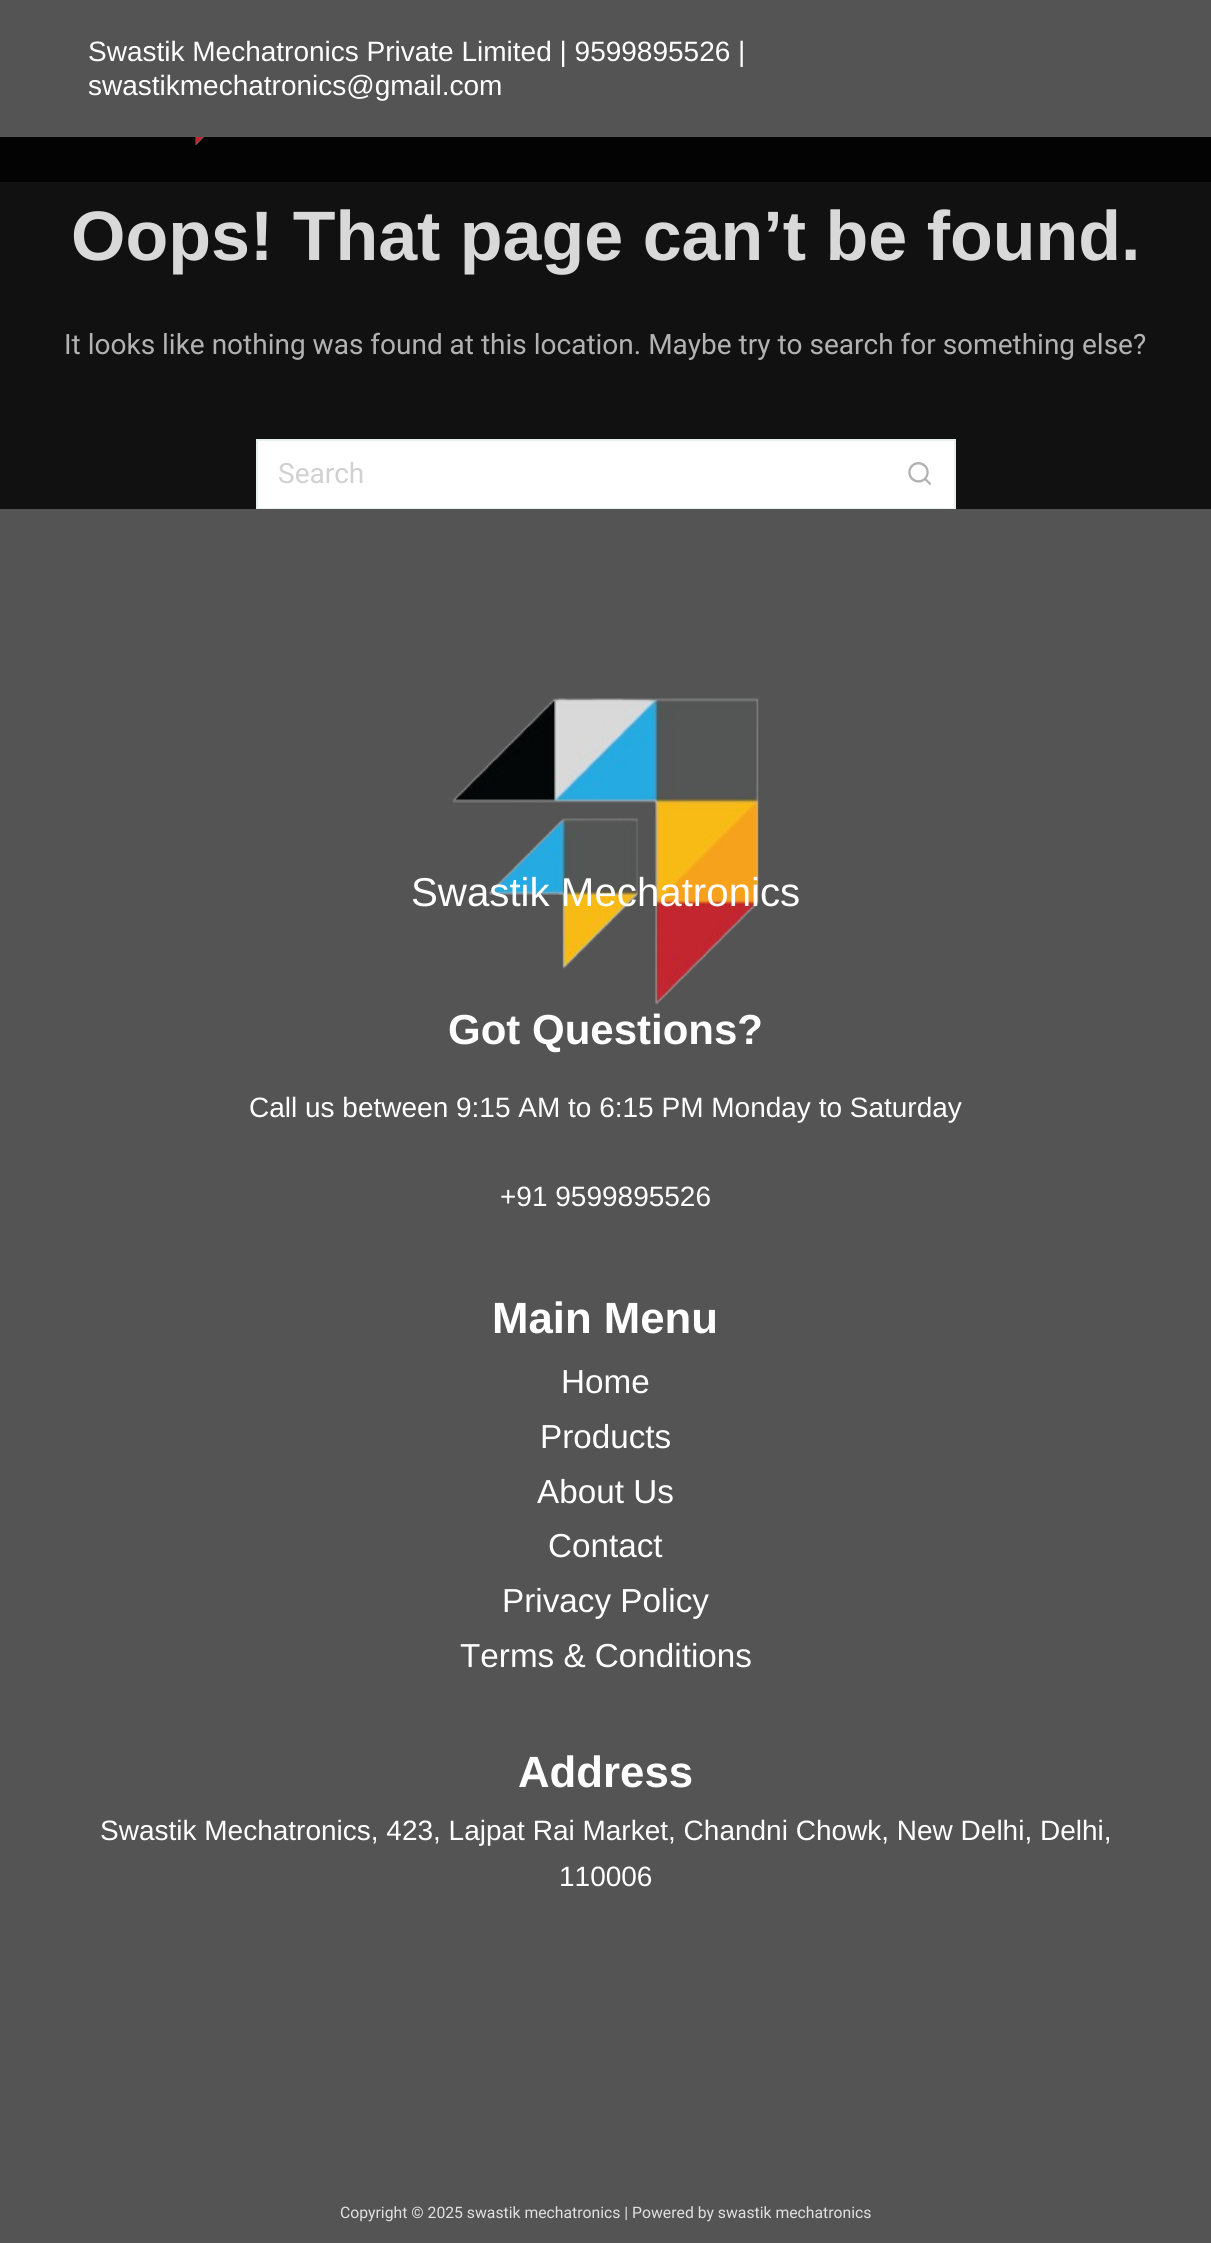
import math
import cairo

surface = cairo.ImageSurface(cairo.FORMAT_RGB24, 1211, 2243)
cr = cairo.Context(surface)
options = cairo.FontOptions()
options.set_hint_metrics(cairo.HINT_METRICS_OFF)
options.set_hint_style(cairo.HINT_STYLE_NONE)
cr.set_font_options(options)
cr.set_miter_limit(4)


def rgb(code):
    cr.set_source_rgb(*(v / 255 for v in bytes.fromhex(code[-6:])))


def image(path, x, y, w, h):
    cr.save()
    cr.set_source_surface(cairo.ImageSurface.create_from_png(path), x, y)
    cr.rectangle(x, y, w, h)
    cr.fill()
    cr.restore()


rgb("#111111")
cr.paint()
rgb("#545454")
cr.rectangle(0, 0, 1211, 137)
cr.fill()
rgb("#030303")
cr.rectangle(0, 137, 1211, 45)
cr.fill()
image("img/1.png", 195, 137, 9, 8)
for x, y, w, h, color in [
    (258, 441, 696, 67, "#ffffff"),
    (256, 439, 700, 2, "#e6f0ee"),
    (256, 508, 630, 1, "#e6f0ee"),
    (256, 439, 2, 70, "#e6f0ee"),
    (954, 439, 2, 70, "#e6f0ee"),
    (886, 508, 70, 1, "#e6f0ee"),
]:
    rgb(color)
    cr.rectangle(x, y, w, h)
    cr.fill()
image("img/2.png", 908, 462, 23, 23)
rgb("#545454")
cr.rectangle(0, 509, 1211, 1734)
cr.fill()
image("img/3.png", 452, 698, 307, 307)
cr.select_font_face("Liberation Sans")
cr.set_font_size(28)
rgb("#ffffff")
cr.move_to(88, 61)
cr.show_text("Swastik Mechatronics Private Limited | 9599895526 |")
cr.move_to(88, 95)
cr.show_text("swastikmechatronics@gmail.com")
cr.select_font_face("Liberation Sans", cairo.FONT_SLANT_NORMAL, cairo.FONT_WEIGHT_BOLD)
cr.set_font_size(70)
rgb("#d9d9d9")
cr.move_to(71, 260)
cr.show_text("Oops! That page can’t be found.")
cr.select_font_face("Roboto")
cr.set_font_size(28)
rgb("#b2b2b2")
cr.move_to(64, 354)
cr.show_text("It looks like nothing was found at this location. Maybe try to search for something else?")
rgb("#d1d1d1")
cr.move_to(278, 483)
cr.show_text("Search")
cr.select_font_face("Liberation Sans")
cr.set_font_size(40.25)
rgb("#ffffff")
cr.move_to(411, 906)
cr.show_text("Swastik Mechatronics")
cr.select_font_face("Liberation Sans", cairo.FONT_SLANT_NORMAL, cairo.FONT_WEIGHT_BOLD)
cr.set_font_size(42)
cr.move_to(448, 1044)
cr.show_text("Got Questions?")
cr.select_font_face("Liberation Sans")
cr.set_font_size(28)
cr.move_to(249, 1117)
cr.show_text("Call us between 9:15 AM to 6:15 PM Monday to Saturday")
cr.move_to(500, 1206)
cr.show_text("+91 9599895526")
cr.select_font_face("Liberation Sans", cairo.FONT_SLANT_NORMAL, cairo.FONT_WEIGHT_BOLD)
cr.set_font_size(43.75)
cr.move_to(492, 1333)
cr.show_text("Main Menu")
cr.select_font_face("Liberation Sans")
cr.set_font_size(33.25)
for x, y, s in [
    (561, 1393, "Home"),
    (540, 1448, "Products"),
    (537, 1503, "About Us"),
    (548, 1557, "Contact"),
    (502, 1612, "Privacy Policy"),
    (460, 1667, "Terms & Conditions"),
]:
    cr.move_to(x, y)
    cr.show_text(s)
cr.select_font_face("Liberation Sans", cairo.FONT_SLANT_NORMAL, cairo.FONT_WEIGHT_BOLD)
cr.set_font_size(43.75)
cr.move_to(518, 1787)
cr.show_text("Address")
cr.select_font_face("Liberation Sans")
cr.set_font_size(28)
cr.move_to(100, 1840)
cr.show_text("Swastik Mechatronics, 423, Lajpat Rai Market, Chandni Chowk, New Delhi, Delhi,")
cr.move_to(559, 1886)
cr.show_text("110006")
cr.select_font_face("Roboto")
cr.set_font_size(15.75)
rgb("#e0e0e0")
cr.move_to(340, 2218)
cr.show_text("Copyright © 2025 swastik mechatronics | Powered by swastik mechatronics")
surface.write_to_png("page.png")
